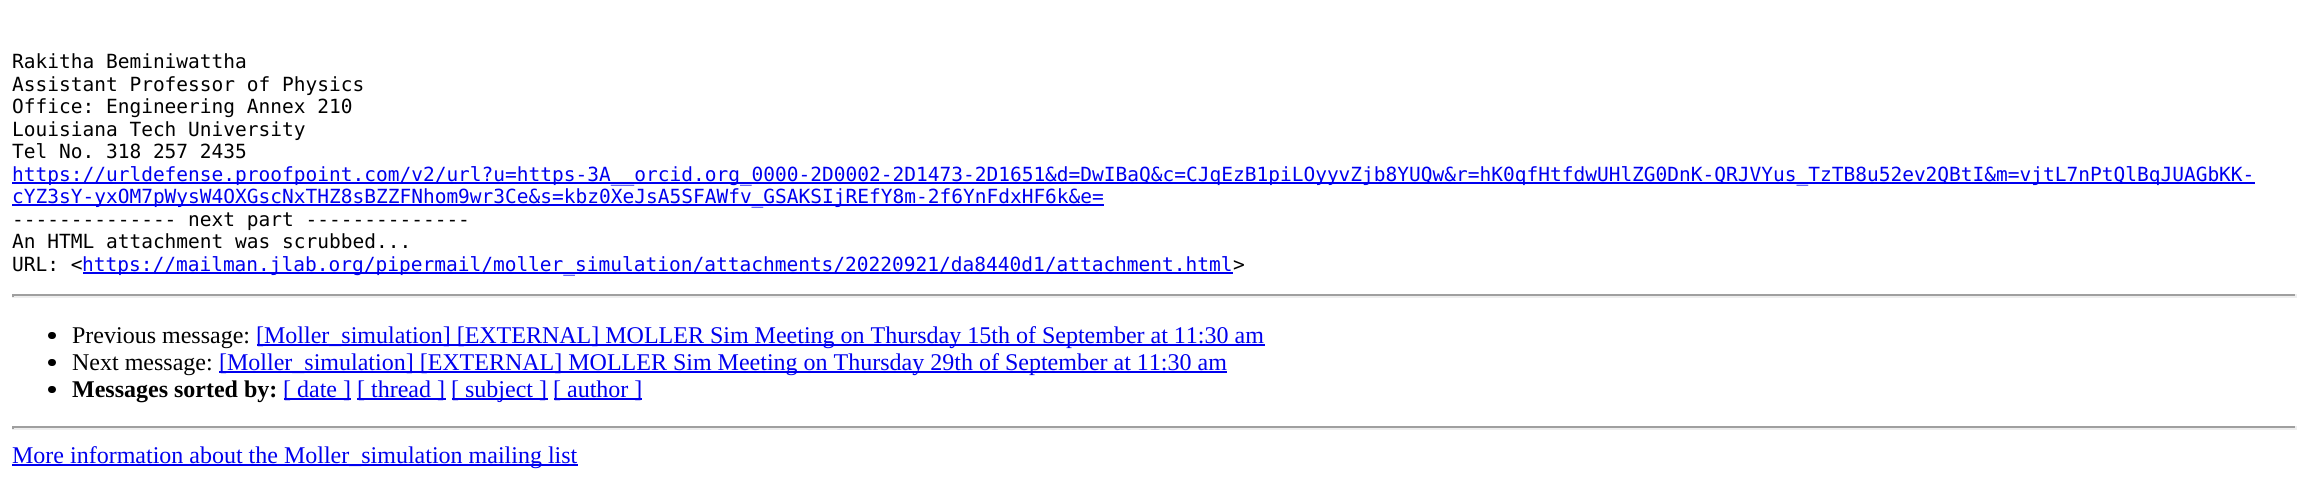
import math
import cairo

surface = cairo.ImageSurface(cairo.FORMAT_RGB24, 2308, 480)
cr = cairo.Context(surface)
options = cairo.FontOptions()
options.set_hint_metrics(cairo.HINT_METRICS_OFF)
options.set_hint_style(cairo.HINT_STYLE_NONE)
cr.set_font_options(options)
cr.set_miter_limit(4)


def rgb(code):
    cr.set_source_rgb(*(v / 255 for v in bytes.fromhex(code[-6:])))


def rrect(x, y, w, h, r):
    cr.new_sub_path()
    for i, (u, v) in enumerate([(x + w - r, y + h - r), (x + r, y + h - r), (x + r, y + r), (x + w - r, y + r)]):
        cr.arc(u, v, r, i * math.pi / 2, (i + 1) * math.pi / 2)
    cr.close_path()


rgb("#ffffff")
cr.paint()
for x, y, w, h, color in [
    (12, 182, 2243, 2, "#0000ee"),
    (12, 204, 1092, 2, "#0000ee"),
    (83, 272, 1150, 2, "#0000ee"),
    (12, 294, 2285, 2, "#9f9f9f"),
    (2295, 294, 2, 3, "#eeeeee"),
    (12, 296, 2285, 2, "#eeeeee"),
    (12, 294, 2, 3, "#9f9f9f"),
]:
    rgb(color)
    cr.rectangle(x, y, w, h)
    cr.fill()
rgb("#000000")
rrect(48, 332, 8, 7, 3.5)
cr.fill()
rgb("#0000ee")
cr.rectangle(257, 344, 1008, 2)
cr.fill()
rgb("#000000")
rrect(48, 359, 8, 7, 3.5)
cr.fill()
rgb("#0000ee")
cr.rectangle(219, 371, 1008, 2)
cr.fill()
rgb("#000000")
rrect(48, 386, 8, 7, 3.5)
cr.fill()
for x, y, w, h, color in [
    (284, 398, 67, 2, "#0000ee"),
    (357, 398, 89, 2, "#0000ee"),
    (452, 398, 96, 2, "#0000ee"),
    (554, 398, 88, 2, "#0000ee"),
    (12, 426, 2285, 2, "#9f9f9f"),
    (2295, 426, 2, 3, "#eeeeee"),
    (12, 428, 2285, 2, "#eeeeee"),
    (12, 426, 2, 3, "#9f9f9f"),
    (12, 464, 566, 2, "#0000ee"),
]:
    rgb(color)
    cr.rectangle(x, y, w, h)
    cr.fill()
cr.select_font_face("DejaVu Sans Mono")
cr.set_font_size(19.5)
rgb("#000000")
for x, y, s in [
    (12, 68, "Rakitha Beminiwattha"),
    (12, 91, "Assistant Professor of Physics"),
    (12, 113, "Office: Engineering Annex 210"),
    (12, 136, "Louisiana Tech University"),
    (12, 158, "Tel No. 318 257 2435"),
]:
    cr.move_to(x, y)
    cr.show_text(s)
rgb("#0000ee")
cr.move_to(12, 181)
cr.show_text("https://urldefense.proofpoint.com/v2/url?u=https-3A__orcid.org_0000-2D0002-2D1473-2D1651&d=DwIBaQ&c=CJqEzB1piLOyyvZjb8YUQw&r=hK0qfHtfdwUHlZG0DnK-QRJVYus_TzTB8u52ev2QBtI&m=vjtL7nPtQlBqJUAGbKK-")
cr.move_to(12, 203)
cr.show_text("cYZ3sY-yxOM7pWysW4OXGscNxTHZ8sBZZFNhom9wr3Ce&s=kbz0XeJsA5SFAWfv_GSAKSIjREfY8m-2f6YnFdxHF6k&e=")
rgb("#000000")
for x, y, s in [
    (12, 226, "-------------- next part --------------"),
    (12, 248, "An HTML attachment was scrubbed..."),
    (12, 271, "URL: <"),
]:
    cr.move_to(x, y)
    cr.show_text(s)
rgb("#0000ee")
cr.move_to(82, 271)
cr.show_text("https://mailman.jlab.org/pipermail/moller_simulation/attachments/20220921/da8440d1/attachment.html")
rgb("#000000")
cr.move_to(1233, 271)
cr.show_text(">")
cr.select_font_face("Liberation Serif")
cr.set_font_size(24)
cr.move_to(72, 343)
cr.show_text("Previous message:")
rgb("#0000ee")
cr.move_to(256, 343)
cr.show_text("[Moller_simulation] [EXTERNAL] MOLLER Sim Meeting on Thursday 15th of September at 11:30 am")
rgb("#000000")
cr.move_to(72, 370)
cr.show_text("Next message:")
rgb("#0000ee")
cr.move_to(219, 370)
cr.show_text("[Moller_simulation] [EXTERNAL] MOLLER Sim Meeting on Thursday 29th of September at 11:30 am")
cr.select_font_face("Liberation Serif", cairo.FONT_SLANT_NORMAL, cairo.FONT_WEIGHT_BOLD)
rgb("#000000")
cr.move_to(72, 397)
cr.show_text("Messages sorted by:")
cr.select_font_face("Liberation Serif")
rgb("#0000ee")
for x, y, s in [
    (283, 397, "[ date ]"),
    (357, 397, "[ thread ]"),
    (451, 397, "[ subject ]"),
    (553, 397, "[ author ]"),
    (12, 463, "More information about the Moller_simulation mailing list"),
]:
    cr.move_to(x, y)
    cr.show_text(s)
surface.write_to_png("page.png")
